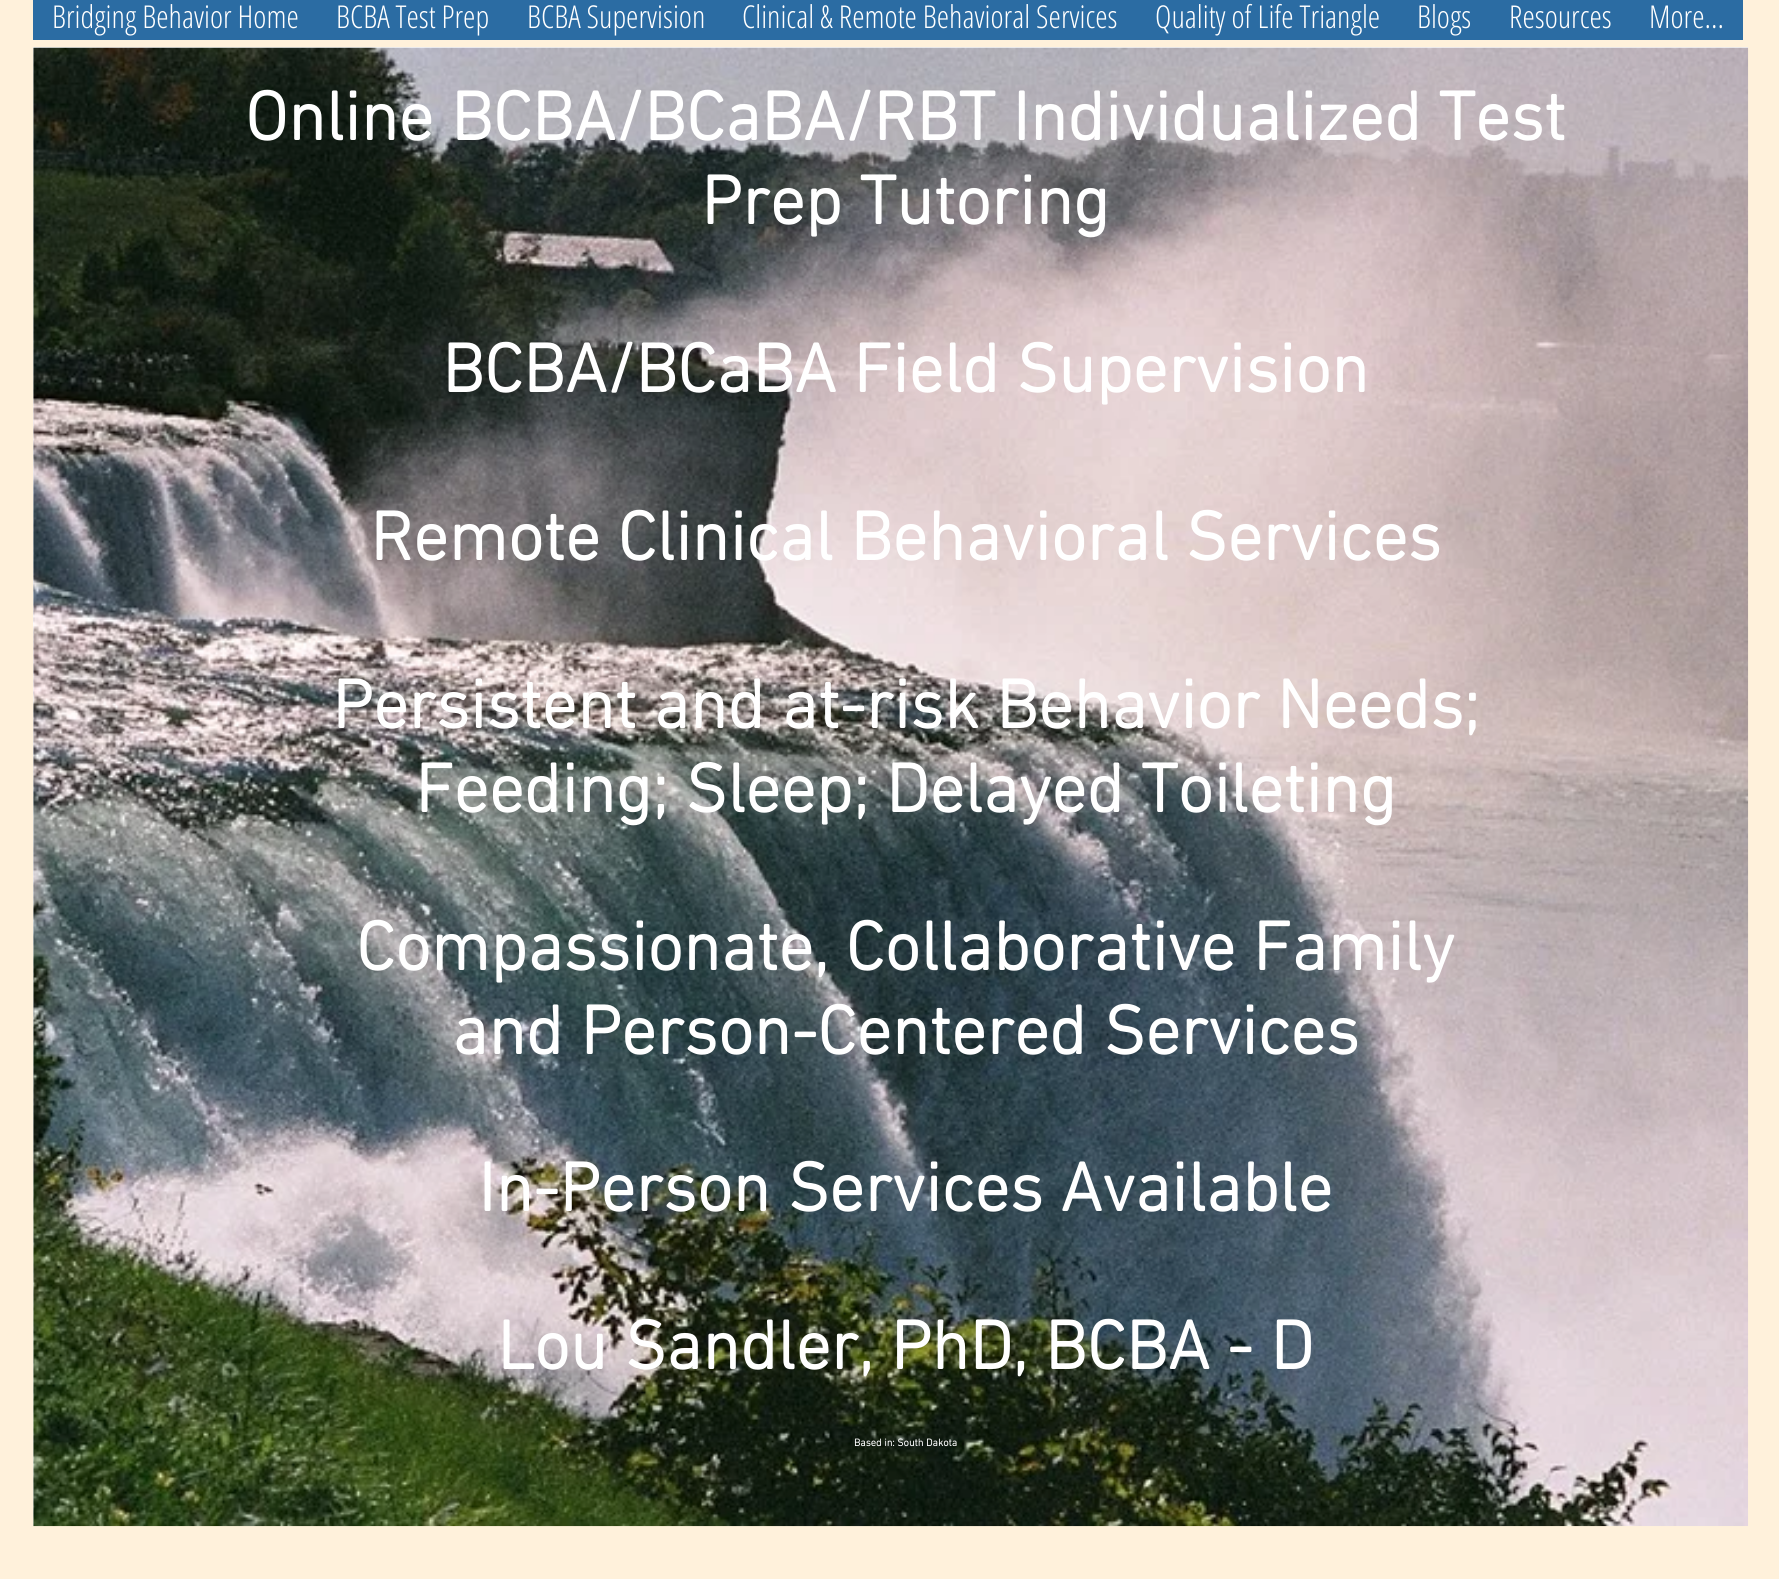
import math
import cairo

surface = cairo.ImageSurface(cairo.FORMAT_RGB24, 1779, 1579)
cr = cairo.Context(surface)
options = cairo.FontOptions()
options.set_hint_metrics(cairo.HINT_METRICS_OFF)
options.set_hint_style(cairo.HINT_STYLE_NONE)
cr.set_font_options(options)
cr.set_miter_limit(4)


def rgb(code):
    cr.set_source_rgb(*(v / 255 for v in bytes.fromhex(code[-6:])))


def image(path, x, y, w, h):
    cr.save()
    cr.set_source_surface(cairo.ImageSurface.create_from_png(path), x, y)
    cr.rectangle(x, y, w, h)
    cr.fill()
    cr.restore()


rgb("#fff1db")
cr.paint()
rgb("#2b6ca3")
cr.rectangle(33, 0, 1710, 40)
cr.fill()
rgb("#fafafa")
cr.rectangle(33, 47, 1715, 1479)
cr.fill()
image("img/1.png", 33, 47, 1716, 1480)
cr.select_font_face("Open Sans Condensed Light")
cr.set_font_size(31.5)
rgb("#ffffff")
for x, y, s in [
    (52, 28, "Bridging Behavior Home"),
    (336, 28, "BCBA Test Prep"),
    (527, 28, "BCBA Supervision"),
    (742, 28, "Clinical & Remote Behavioral Services"),
    (1155, 28, "Quality of Life Triangle"),
    (1417, 28, "Blogs"),
    (1509, 28, "Resources"),
    (1649, 28, "More..."),
]:
    cr.move_to(x, y)
    cr.show_text(s)
cr.select_font_face("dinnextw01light", cairo.FONT_SLANT_NORMAL, cairo.FONT_WEIGHT_BOLD)
cr.set_font_size(70)
for x, y, s in [
    (245, 140, "Online BCBA/BCaBA/RBT Individualized Test"),
    (701, 224, "Prep Tutoring"),
    (442, 392, "BCBA/BCaBA Field Supervision"),
    (370, 560, "Remote Clinical Behavioral Services"),
    (332, 728, "Persistent and at-risk Behavior Needs;"),
    (415, 812, "Feeding; Sleep; Delayed Toileting"),
    (356, 970, "Compassionate, Collaborative Family"),
    (452, 1054, "and Person-Centered Services"),
    (478, 1211, "In-Person Services Available"),
    (497, 1369, "Lou Sandler, PhD, BCBA - D"),
]:
    cr.move_to(x, y)
    cr.show_text(s)
cr.set_font_size(10.5)
cr.move_to(854, 1446)
cr.show_text("Based in: South Dakota")
surface.write_to_png("page.png")
